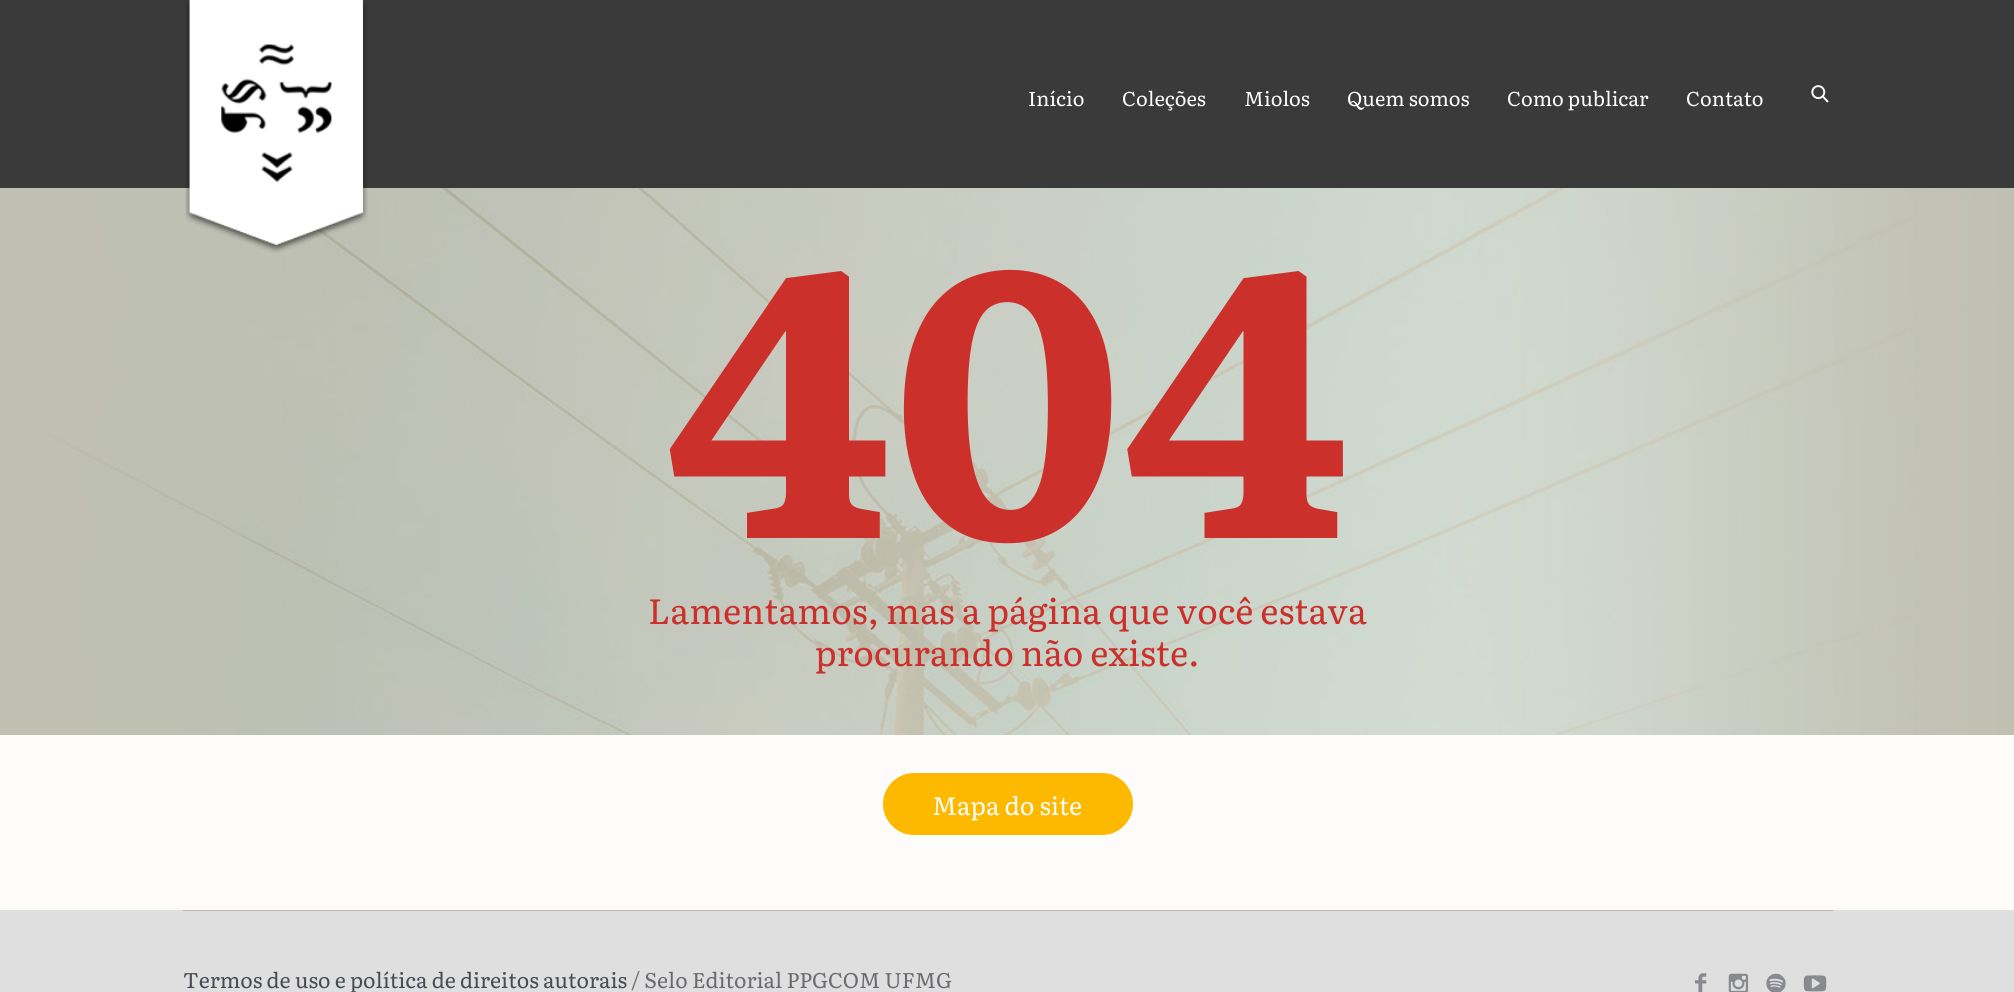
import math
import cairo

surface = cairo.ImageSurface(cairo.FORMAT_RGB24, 2014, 992)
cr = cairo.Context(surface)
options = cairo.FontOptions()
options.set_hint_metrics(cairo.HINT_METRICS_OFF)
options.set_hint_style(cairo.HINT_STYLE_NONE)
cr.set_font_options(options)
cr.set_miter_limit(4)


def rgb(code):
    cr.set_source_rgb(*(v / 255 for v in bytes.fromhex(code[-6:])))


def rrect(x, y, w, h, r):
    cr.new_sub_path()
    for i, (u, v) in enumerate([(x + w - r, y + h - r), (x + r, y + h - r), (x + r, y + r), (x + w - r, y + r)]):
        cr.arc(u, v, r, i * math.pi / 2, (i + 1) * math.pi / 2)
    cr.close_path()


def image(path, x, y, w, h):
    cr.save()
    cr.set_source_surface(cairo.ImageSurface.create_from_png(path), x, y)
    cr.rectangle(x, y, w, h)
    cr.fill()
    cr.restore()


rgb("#fdfcfb")
cr.paint()
rgb("#3a3a3a")
cr.rectangle(0, 0, 2014, 188)
cr.fill()
image("img/3.png", 0, 188, 2014, 547)
image("img/1.png", 185, 0, 183, 253)
image("img/2.png", 1811, 85, 18, 18)
rgb("#fcb900")
rrect(883, 773, 250, 62, 31)
cr.fill()
rgb("#dfdfdf")
cr.rectangle(0, 910, 2014, 82)
cr.fill()
rgb("#b9b9b9")
cr.rectangle(183, 910, 1650, 1)
cr.fill()
image("img/4.png", 1695, 973, 12, 19)
image("img/5.png", 1728, 973, 21, 19)
image("img/6.png", 1766, 973, 20, 19)
image("img/7.png", 1803, 975, 24, 17)
cr.select_font_face("Literata")
cr.set_font_size(20)
rgb("#fdfcfb")
for x, y, s in [
    (1028, 106, "Início"),
    (1122, 106, "Coleções"),
    (1244, 106, "Miolos"),
    (1347, 106, "Quem somos"),
    (1507, 106, "Como publicar"),
    (1686, 106, "Contato"),
]:
    cr.move_to(x, y)
    cr.show_text(s)
cr.select_font_face("Literata", cairo.FONT_SLANT_NORMAL, cairo.FONT_WEIGHT_BOLD)
cr.set_font_size(375)
rgb("#cc302b")
cr.move_to(666, 538)
cr.show_text("404")
cr.select_font_face("Literata")
cr.set_font_size(35)
cr.move_to(648, 624)
cr.show_text("Lamentamos, mas a página que você estava")
cr.move_to(815, 666)
cr.show_text("procurando não existe.")
cr.set_font_size(25)
rgb("#fdfcfb")
cr.move_to(932, 815)
cr.show_text("Mapa do site")
cr.set_font_size(21.25)
rgb("#484c53")
cr.move_to(183, 988)
cr.show_text("Termos de uso e política de direitos autorais")
rgb("#6b6c70")
cr.move_to(631, 988)
cr.show_text("/ Selo Editorial PPGCOM UFMG")
surface.write_to_png("page.png")
